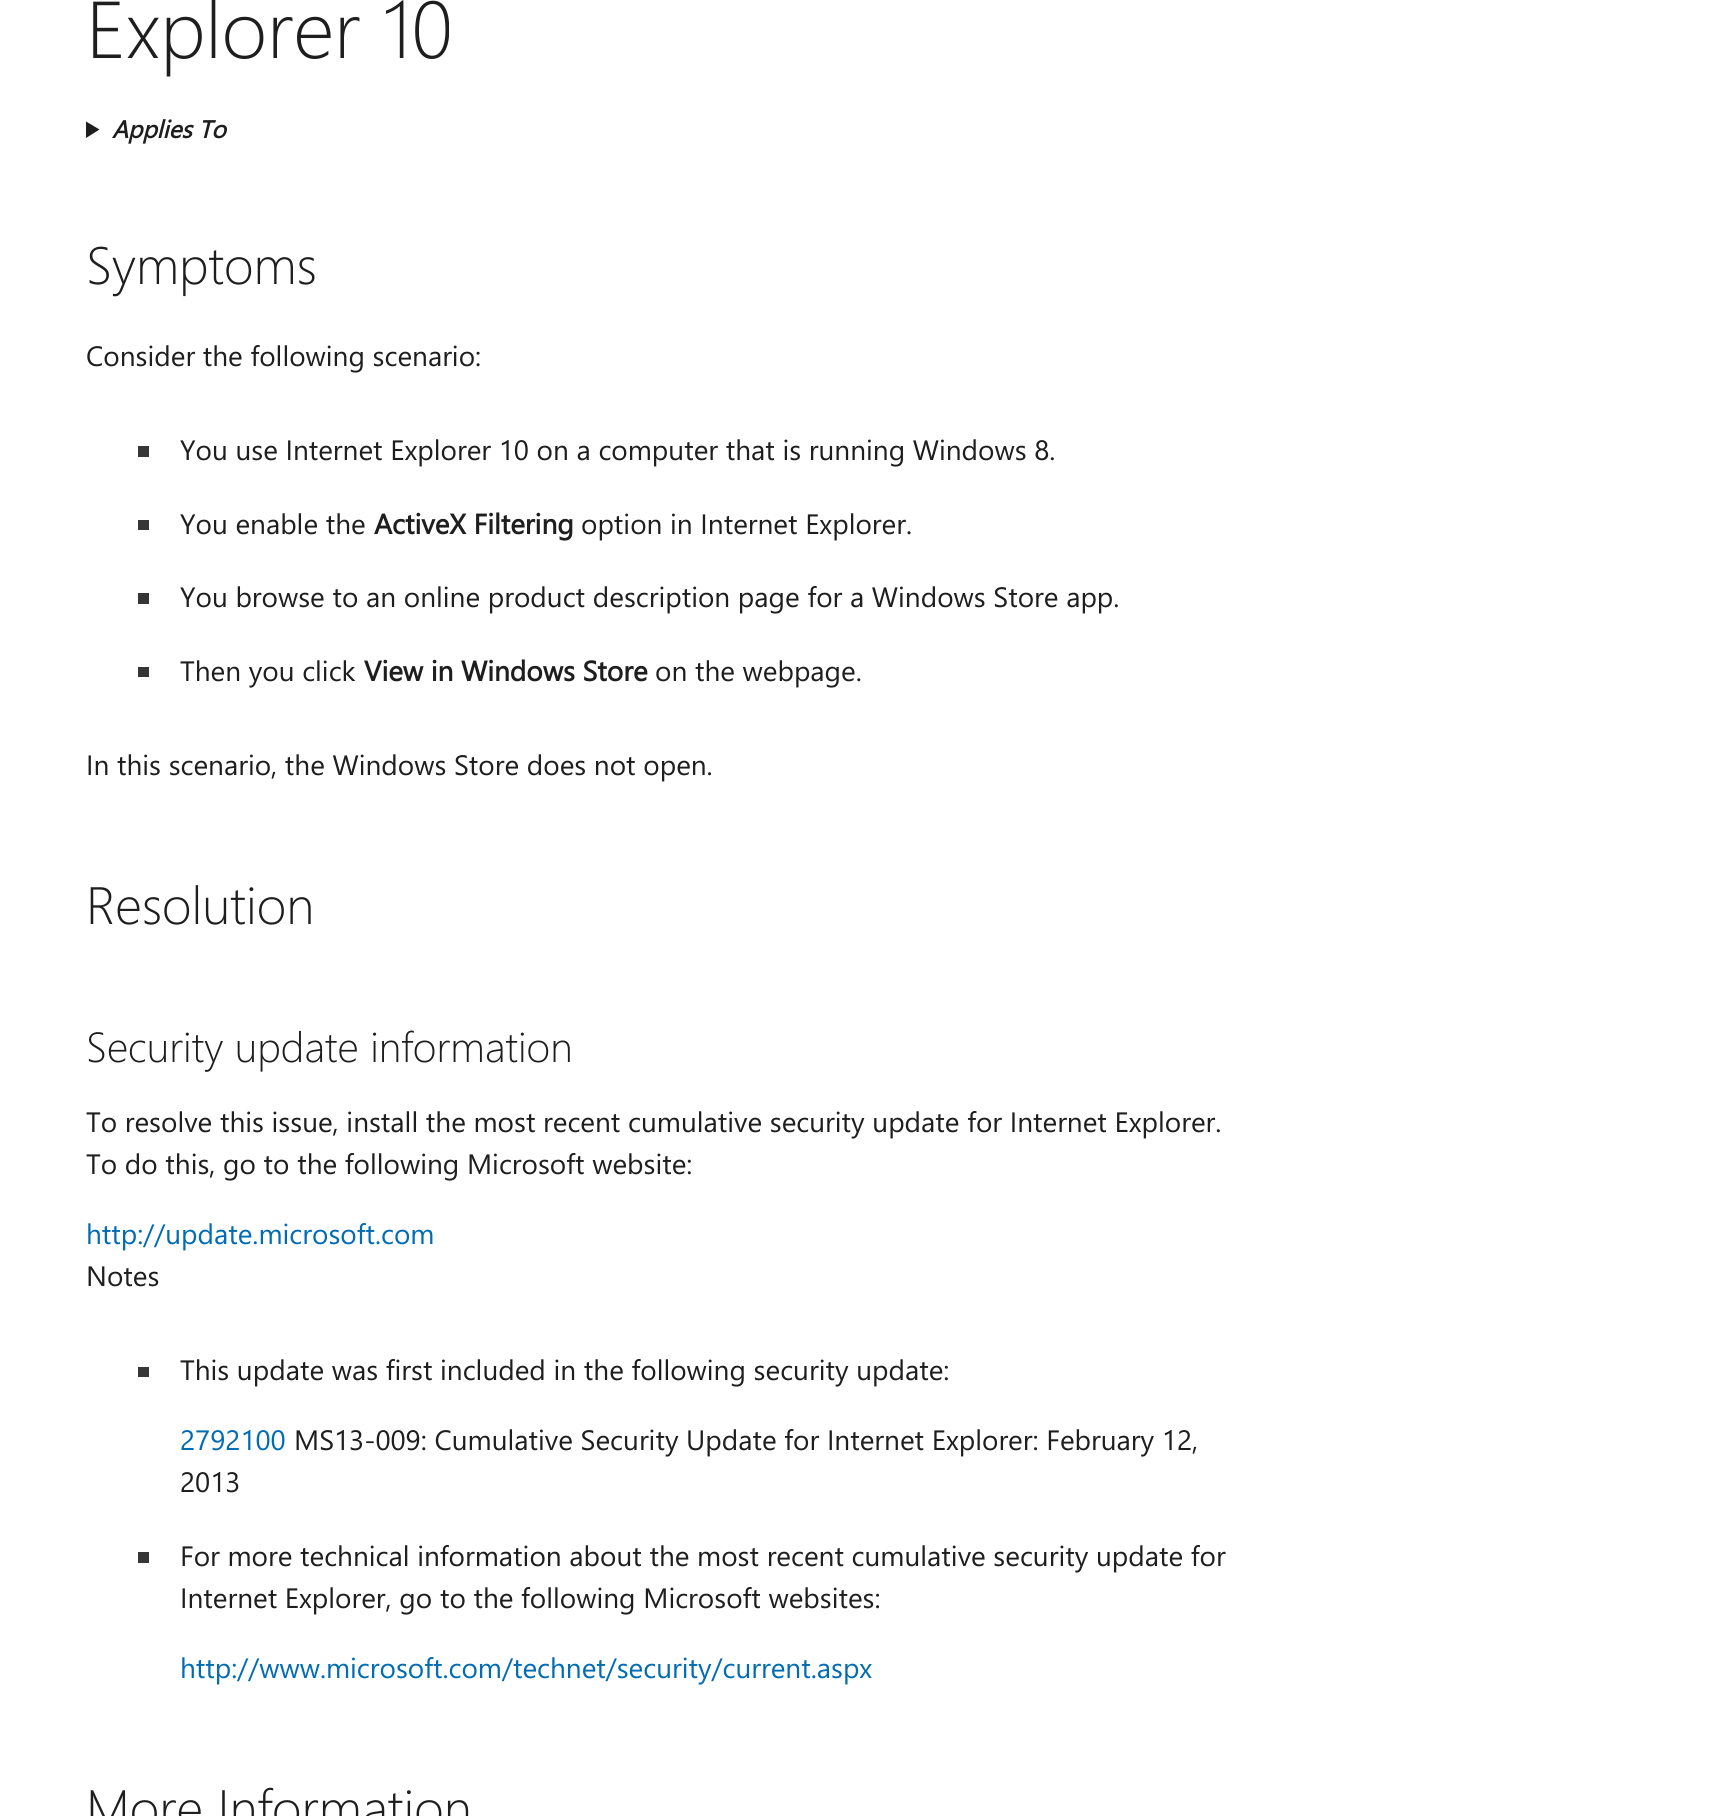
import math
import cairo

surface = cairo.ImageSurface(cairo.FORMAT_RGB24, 1716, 1816)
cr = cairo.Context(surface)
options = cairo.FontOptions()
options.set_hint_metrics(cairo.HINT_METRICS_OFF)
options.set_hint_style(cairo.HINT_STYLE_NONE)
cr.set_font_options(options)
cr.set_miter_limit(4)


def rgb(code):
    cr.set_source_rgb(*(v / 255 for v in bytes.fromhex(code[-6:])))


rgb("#ffffff")
cr.paint()
rgb("#1e1e1e")
cr.new_path()
cr.move_to(86, 121.5)
cr.line_to(99.5, 129.5)
cr.line_to(86, 138)
cr.close_path()
cr.fill()
for x, y, w, h, color in [
    (138, 446, 11, 11, "#363636"),
    (138, 520, 11, 10, "#363636"),
    (138, 593, 11, 11, "#363636"),
    (138, 667, 11, 10, "#363636"),
    (138, 1367, 11, 10, "#363636"),
    (138, 1552, 11, 11, "#363636"),
]:
    rgb(color)
    cr.rectangle(x, y, w, h)
    cr.fill()
cr.select_font_face("Segoe UI Light")
cr.set_font_size(80.5)
rgb("#1e1e1e")
cr.move_to(86, 58)
cr.show_text("Explorer 10")
cr.select_font_face("Segoe UI", cairo.FONT_SLANT_ITALIC, cairo.FONT_WEIGHT_BOLD)
cr.set_font_size(24.5)
cr.move_to(112, 138)
cr.show_text("Applies To")
cr.select_font_face("Segoe UI Light")
cr.set_font_size(52.5)
cr.move_to(86, 284)
cr.show_text("Symptoms")
cr.select_font_face("Segoe UI")
cr.set_font_size(28)
for x, y, s in [
    (86, 366, "Consider the following scenario:"),
    (180, 460, "You use Internet Explorer 10 on a computer that is running Windows 8."),
    (180, 534, "You enable the"),
]:
    cr.move_to(x, y)
    cr.show_text(s)
cr.select_font_face("Segoe UI", cairo.FONT_SLANT_NORMAL, cairo.FONT_WEIGHT_BOLD)
cr.move_to(374, 534)
cr.show_text("ActiveX Filtering")
cr.select_font_face("Segoe UI")
for x, y, s in [
    (581, 534, "option in Internet Explorer."),
    (180, 607, "You browse to an online product description page for a Windows Store app."),
    (180, 681, "Then you click"),
]:
    cr.move_to(x, y)
    cr.show_text(s)
cr.select_font_face("Segoe UI", cairo.FONT_SLANT_NORMAL, cairo.FONT_WEIGHT_BOLD)
cr.move_to(364, 681)
cr.show_text("View in Windows Store")
cr.select_font_face("Segoe UI")
cr.move_to(655, 681)
cr.show_text("on the webpage.")
cr.move_to(86, 775)
cr.show_text("In this scenario, the Windows Store does not open.")
cr.select_font_face("Segoe UI Light")
cr.set_font_size(52.5)
cr.move_to(86, 924)
cr.show_text("Resolution")
cr.set_font_size(42)
cr.move_to(86, 1062)
cr.show_text("Security update information")
cr.select_font_face("Segoe UI")
cr.set_font_size(28)
cr.move_to(86, 1132)
cr.show_text("To resolve this issue, install the most recent cumulative security update for Internet Explorer.")
cr.move_to(86, 1174)
cr.show_text("To do this, go to the following Microsoft website:")
rgb("#006cb4")
cr.move_to(86, 1244)
cr.show_text("http://update.microsoft.com")
rgb("#1e1e1e")
cr.move_to(86, 1286)
cr.show_text("Notes")
cr.move_to(180, 1380)
cr.show_text("This update was first included in the following security update:")
rgb("#006cb4")
cr.move_to(180, 1450)
cr.show_text("2792100")
rgb("#1e1e1e")
for x, y, s in [
    (294, 1450, "MS13-009: Cumulative Security Update for Internet Explorer: February 12,"),
    (180, 1492, "2013"),
    (180, 1566, "For more technical information about the most recent cumulative security update for"),
    (180, 1608, "Internet Explorer, go to the following Microsoft websites:"),
]:
    cr.move_to(x, y)
    cr.show_text(s)
rgb("#006cb4")
cr.move_to(180, 1678)
cr.show_text("http://www.microsoft.com/technet/security/current.aspx")
cr.select_font_face("Segoe UI Light")
cr.set_font_size(52.5)
rgb("#1e1e1e")
cr.move_to(86, 1827)
cr.show_text("More Information")
surface.write_to_png("page.png")
